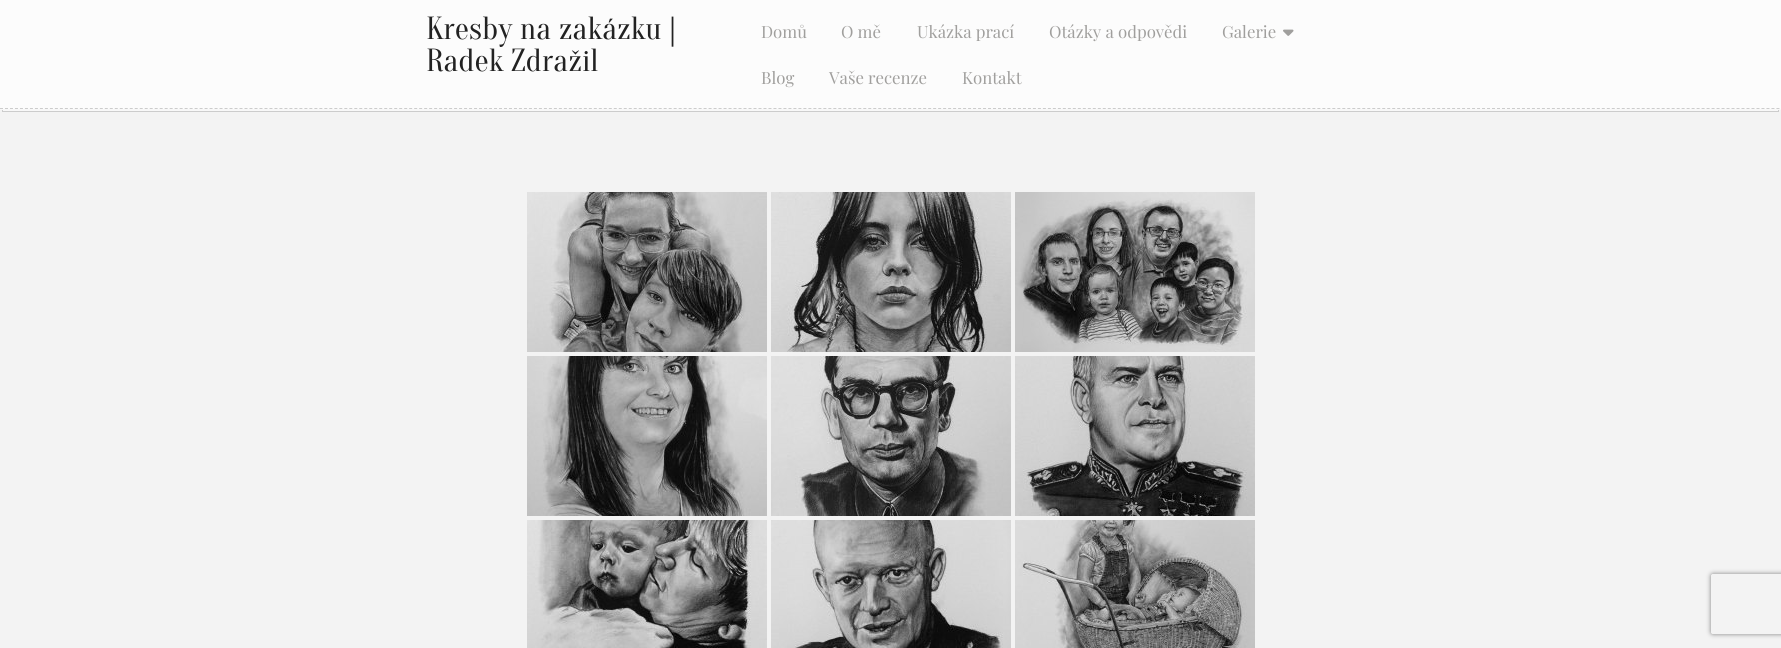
import math
import cairo

surface = cairo.ImageSurface(cairo.FORMAT_RGB24, 1781, 648)
cr = cairo.Context(surface)
options = cairo.FontOptions()
options.set_hint_metrics(cairo.HINT_METRICS_OFF)
options.set_hint_style(cairo.HINT_STYLE_NONE)
cr.set_font_options(options)
cr.set_miter_limit(4)


def rgb(code):
    cr.set_source_rgb(*(v / 255 for v in bytes.fromhex(code[-6:])))


def rrect(x, y, w, h, r):
    cr.new_sub_path()
    for i, (u, v) in enumerate([(x + w - r, y + h - r), (x + r, y + h - r), (x + r, y + r), (x + w - r, y + r)]):
        cr.arc(u, v, r, i * math.pi / 2, (i + 1) * math.pi / 2)
    cr.close_path()


def soft_shadow(x, y, w, h, r, blur, alpha):
    cr.push_group_with_content(cairo.CONTENT_ALPHA)
    cr.set_operator(cairo.OPERATOR_SOURCE)
    for i in range(15, -16, -2):
        e = blur * i / 6
        if min(w, h) + 2 * e > 0:
            cr.set_source_rgba(0, 0, 0, alpha * math.erfc((i - 1) / 8.5) / 2)
            rrect(x - e, y - e, w + 2 * e, h + 2 * e, max(0, min(r + e + blur * .6, min(w, h) / 2 + e)))
            cr.fill()
    cr.mask(cr.pop_group())


def image(path, x, y, w, h):
    cr.save()
    cr.set_source_surface(cairo.ImageSurface.create_from_png(path), x, y)
    cr.rectangle(x, y, w, h)
    cr.fill()
    cr.restore()


rgb("#f3f3f3")
cr.paint()
rgb("#cccccc")
cr.rectangle(2, 110, 1777, 2)
cr.fill()
rgb("#f8f8f8")
cr.rectangle(3, 110, 1775, 1)
cr.fill()
cr.rectangle(-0.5, -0.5, 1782, 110)
cr.set_line_width(1)
cr.stroke()
rgb("#fcfcfc")
cr.rectangle(0, 0, 1781, 109)
cr.fill()
cr.new_path()
cr.move_to(0, 108.5)
cr.line_to(1781, 108.5)
rgb("#cccccc")
cr.set_dash([3, 1.99])
cr.stroke()
image("img/1.png", 1283, 29, 11, 7)
image("img/2.png", 527, 192, 240, 160)
image("img/3.png", 771, 192, 240, 160)
image("img/4.png", 1015, 192, 240, 160)
image("img/5.png", 527, 356, 240, 160)
image("img/6.png", 771, 356, 240, 160)
image("img/7.png", 1015, 356, 240, 160)
image("img/8.png", 527, 520, 240, 128)
image("img/9.png", 771, 520, 240, 128)
image("img/10.png", 1015, 520, 240, 128)
cr.save()
cr.set_fill_rule(cairo.FILL_RULE_EVEN_ODD)
cr.new_path()
cr.move_to(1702, 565)
cr.line_to(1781, 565)
cr.line_to(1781, 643)
cr.line_to(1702, 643)
cr.close_path()
cr.move_to(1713, 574)
cr.line_to(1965, 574)
cr.curve_to(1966, 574, 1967, 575, 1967, 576)
cr.line_to(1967, 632)
cr.curve_to(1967, 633, 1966, 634, 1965, 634)
cr.line_to(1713, 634)
cr.curve_to(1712, 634, 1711, 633, 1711, 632)
cr.line_to(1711, 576)
cr.curve_to(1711, 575, 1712, 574, 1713, 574)
cr.close_path()
cr.clip()
rgb("#808080")
soft_shadow(1711, 574, 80, 60, 2, 2.5, 1)
cr.restore()
cr.select_font_face("Oranienbaum")
cr.set_font_size(32)
rgb("#222222")
cr.move_to(426, 39)
cr.show_text("Kresby na zakázku |")
cr.move_to(426, 71)
cr.show_text("Radek Zdražil")
cr.select_font_face("Playfair Display")
cr.set_font_size(16.75)
rgb("#a09f9d")
for x, y, s in [
    (761, 38, "Domů"),
    (841, 38, "O mě"),
    (917, 38, "Ukázka prací"),
    (1049, 38, "Otázky a odpovědi"),
    (1222, 38, "Galerie"),
    (761, 84, "Blog"),
    (829, 84, "Vaše recenze"),
    (962, 84, "Kontakt"),
]:
    cr.move_to(x, y)
    cr.show_text(s)
surface.write_to_png("page.png")
